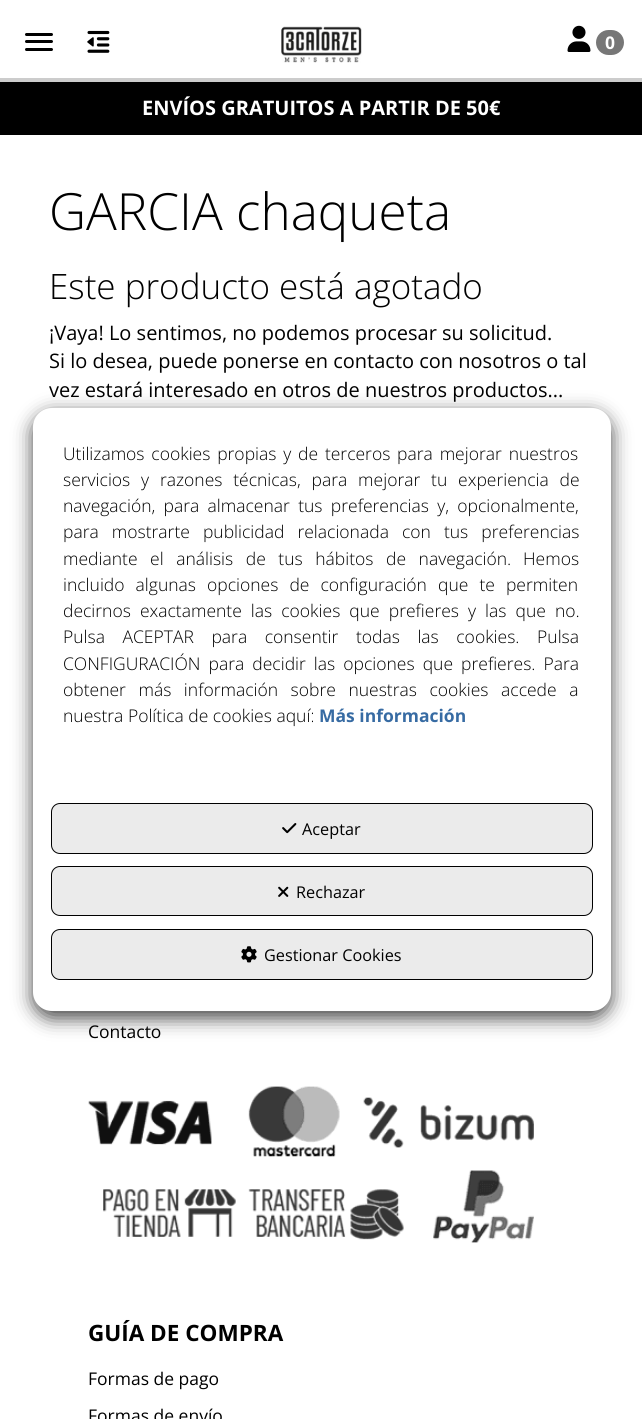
import math
import cairo

surface = cairo.ImageSurface(cairo.FORMAT_RGB24, 642, 1419)
cr = cairo.Context(surface)
options = cairo.FontOptions()
options.set_hint_metrics(cairo.HINT_METRICS_OFF)
options.set_hint_style(cairo.HINT_STYLE_NONE)
cr.set_font_options(options)
cr.set_miter_limit(4)


def rgb(code):
    cr.set_source_rgb(*(v / 255 for v in bytes.fromhex(code[-6:])))


def tracked(x, y, s, letter, word):
    cr.move_to(x, y)
    for ch in s:
        cr.show_text(ch)
        cr.rel_move_to(letter + word * (ch == ' '), 0)


def rrect(x, y, w, h, r):
    cr.new_sub_path()
    for i, (u, v) in enumerate([(x + w - r, y + h - r), (x + r, y + h - r), (x + r, y + r), (x + w - r, y + r)]):
        cr.arc(u, v, r, i * math.pi / 2, (i + 1) * math.pi / 2)
    cr.close_path()


def soft_shadow(x, y, w, h, r, blur, alpha):
    cr.push_group_with_content(cairo.CONTENT_ALPHA)
    cr.set_operator(cairo.OPERATOR_SOURCE)
    for i in range(15, -16, -2):
        e = blur * i / 6
        if min(w, h) + 2 * e > 0:
            cr.set_source_rgba(0, 0, 0, alpha * math.erfc((i - 1) / 8.5) / 2)
            rrect(x - e, y - e, w + 2 * e, h + 2 * e, max(0, min(r + e + blur * .6, min(w, h) / 2 + e)))
            cr.fill()
    cr.mask(cr.pop_group())


def image(path, x, y, w, h):
    cr.save()
    cr.set_source_surface(cairo.ImageSurface.create_from_png(path), x, y)
    cr.rectangle(x, y, w, h)
    cr.fill()
    cr.restore()


rgb("#ffffff")
cr.paint()
rgb("#cccccc")
cr.rectangle(0, 78, 642, 4)
cr.fill()
image("img/1.png", 281, 26, 81, 37)
rgb("#000000")
rrect(25, 33, 28, 3, 1.5)
cr.fill()
rrect(25, 40, 28, 3, 1.5)
cr.fill()
rrect(25, 48, 28, 3, 1.5)
cr.fill()
image("img/2.png", 567, 25, 24, 27)
rgb("#777777")
rrect(596, 30, 28, 25, 12.5)
cr.fill()
rgb("#000000")
cr.rectangle(0, 82, 642, 53)
cr.fill()
image("img/3.png", 87, 30, 23, 23)
rgb("#454545")
soft_shadow(33, 414, 578, 604, 19, 9.5, 1)
rgb("#ffffff")
rrect(33, 408, 578, 603, 19)
cr.fill()
rgb("#ebebeb")
rrect(51.5, 803.5, 541, 50, 8.5)
cr.fill_preserve()
rgb("#000000")
cr.set_line_width(1)
cr.stroke()
image("img/4.png", 282, 823, 15, 11)
rgb("#ebebeb")
rrect(51.5, 866.5, 541, 49, 8.5)
cr.fill_preserve()
rgb("#000000")
cr.stroke()
image("img/5.png", 278, 886, 11, 11)
rgb("#ebebeb")
rrect(51.5, 929.5, 541, 50, 8.5)
cr.fill_preserve()
rgb("#000000")
cr.stroke()
image("img/6.png", 241, 946, 16, 17)
image("img/7.png", 88, 1086, 446, 157)
cr.select_font_face("Open Sans", cairo.FONT_SLANT_NORMAL, cairo.FONT_WEIGHT_BOLD)
cr.set_font_size(17.5)
rgb("#ffffff")
cr.move_to(605, 49)
cr.show_text("0")
cr.set_font_size(20)
cr.move_to(142, 115)
cr.show_text("ENVÍOS GRATUITOS A PARTIR DE 50€")
cr.select_font_face("Open Sans Light")
cr.set_font_size(51.25)
rgb("#000000")
cr.move_to(49, 230)
cr.show_text("GARCIA chaqueta")
cr.set_font_size(35)
cr.move_to(49, 299)
cr.show_text("Este producto está agotado")
cr.select_font_face("Open Sans")
cr.set_font_size(20)
for x, y, s in [
    (49, 340, "¡Vaya! Lo sentimos, no podemos procesar su solicitud."),
    (49, 368, "Si lo desea, puede ponerse en contacto con nosotros o tal"),
    (49, 397, "vez estará interesado en otros de nuestros productos..."),
]:
    cr.move_to(x, y)
    cr.show_text(s)
cr.select_font_face("Open Sans Light")
cr.set_font_size(17.5)
tracked(63, 460, "Utilizamos cookies propias y de terceros para mejorar nuestros", 0, 2.25)
tracked(63, 486, "servicios y razones técnicas, para mejorar tu experiencia de", 0, 6.25)
tracked(63, 512, "navegación, para almacenar tus preferencias y, opcionalmente,", 0, 3.75)
tracked(63, 538, "para mostrarte publicidad relacionada con tus preferencias", 0, 8.5)
tracked(63, 565, "mediante el análisis de tus hábitos de navegación.", 0, 8)
cr.move_to(523, 565)
cr.show_text("Hemos")
tracked(63, 591, "incluido algunas opciones de configuración que te permiten", 0, 6.5)
tracked(63, 617, "decirnos exactamente las cookies que prefieres y las que no.", 0, 4.5)
tracked(63, 643, "Pulsa ACEPTAR para consentir todas las cookies. Pulsa", 0, 13)
tracked(63, 670, "CONFIGURACIÓN para decidir las opciones que prefieres. Para", 0, 3.5)
tracked(63, 696, "obtener más información sobre nuestras cookies accede a", 0, 8)
cr.move_to(63, 722)
cr.show_text("nuestra Política de cookies aquí:")
cr.select_font_face("Open Sans", cairo.FONT_SLANT_NORMAL, cairo.FONT_WEIGHT_BOLD)
rgb("#376ba3")
cr.move_to(319, 722)
cr.show_text("Más información")
cr.select_font_face("Open Sans")
cr.set_font_size(16.25)
rgb("#000000")
for x, y, s in [
    (302, 835, "Aceptar"),
    (296, 898, "Rechazar"),
    (264, 961, "Gestionar Cookies"),
]:
    cr.move_to(x, y)
    cr.show_text(s)
cr.set_font_size(17.5)
cr.move_to(88, 1038)
cr.show_text("Contacto")
cr.select_font_face("Open Sans", cairo.FONT_SLANT_NORMAL, cairo.FONT_WEIGHT_BOLD)
cr.set_font_size(22.5)
cr.move_to(88, 1341)
cr.show_text("GUÍA DE COMPRA")
cr.select_font_face("Open Sans")
cr.set_font_size(17.5)
cr.move_to(88, 1385)
cr.show_text("Formas de pago")
cr.move_to(88, 1422)
cr.show_text("Formas de envío")
surface.write_to_png("page.png")
